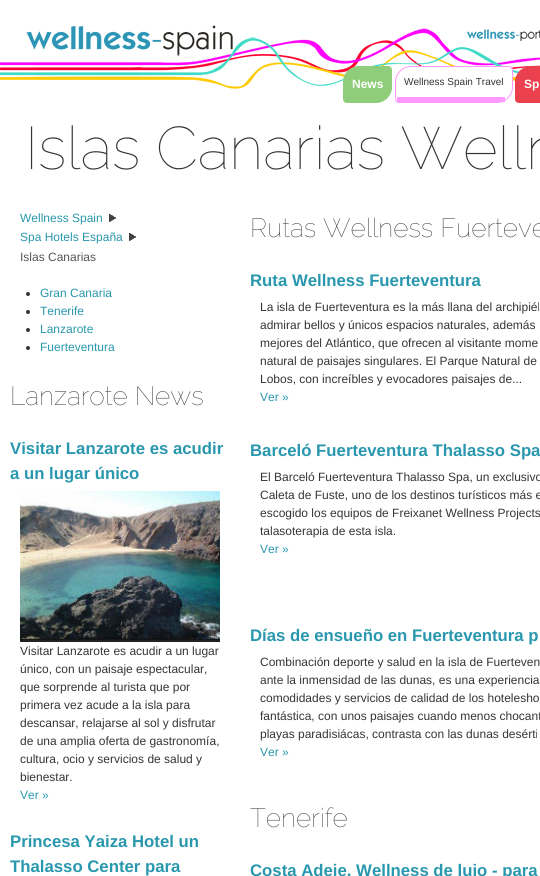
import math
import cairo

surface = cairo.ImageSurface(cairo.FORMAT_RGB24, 540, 876)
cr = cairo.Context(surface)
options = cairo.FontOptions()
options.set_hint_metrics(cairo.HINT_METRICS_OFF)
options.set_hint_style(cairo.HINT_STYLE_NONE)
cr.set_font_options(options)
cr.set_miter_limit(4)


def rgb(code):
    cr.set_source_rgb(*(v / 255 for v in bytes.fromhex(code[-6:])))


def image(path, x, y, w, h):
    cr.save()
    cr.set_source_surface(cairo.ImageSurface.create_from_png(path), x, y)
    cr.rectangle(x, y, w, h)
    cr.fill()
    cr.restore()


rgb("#ffffff")
cr.paint()
image("img/1.png", 0, 25, 540, 64)
image("img/2.png", 467, 29, 73, 12)
rgb("#8fcd7a")
cr.new_path()
cr.move_to(359, 66.5)
cr.line_to(388, 66.5)
cr.curve_to(390, 66.5, 391.5, 68, 391.5, 70)
cr.line_to(391.5, 87)
cr.curve_to(391.5, 95.5, 384.5, 102.5, 376, 102.5)
cr.line_to(347, 102.5)
cr.curve_to(345, 102.5, 343.5, 101, 343.5, 99)
cr.line_to(343.5, 82)
cr.curve_to(343.5, 73.5, 350.5, 66.5, 359, 66.5)
cr.close_path()
cr.fill_preserve()
cr.set_line_width(1)
cr.stroke()
rgb("#ffffff")
cr.new_path()
cr.move_to(411, 67)
cr.line_to(509, 67)
cr.curve_to(511, 67, 512, 68, 512, 70)
cr.line_to(512, 87)
cr.curve_to(512, 93, 505, 97, 497, 97)
cr.line_to(396, 97)
cr.line_to(396, 82)
cr.curve_to(396, 74, 403, 67, 411, 67)
cr.close_path()
cr.fill()
cr.new_path()
cr.move_to(411, 66.5)
cr.line_to(509, 66.5)
cr.curve_to(511, 66.5, 512.5, 68, 512.5, 70)
cr.line_to(512.5, 87)
cr.curve_to(512.5, 95.5, 505.5, 102.5, 497, 102.5)
cr.line_to(399, 102.5)
cr.curve_to(397, 102.5, 395.5, 101, 395.5, 99)
cr.line_to(395.5, 82)
cr.curve_to(395.5, 73.5, 402.5, 66.5, 411, 66.5)
cr.close_path()
rgb("#ff99ff")
cr.stroke()
cr.rectangle(397, 97, 108, 5)
cr.fill()
rgb("#eb414e")
cr.new_path()
cr.move_to(531, 66.5)
cr.line_to(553, 66.5)
cr.curve_to(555, 66.5, 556.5, 68, 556.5, 70)
cr.line_to(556.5, 87)
cr.curve_to(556.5, 95.5, 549.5, 102.5, 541, 102.5)
cr.line_to(519, 102.5)
cr.curve_to(517, 102.5, 515.5, 101, 515.5, 99)
cr.line_to(515.5, 82)
cr.curve_to(515.5, 73.5, 522.5, 66.5, 531, 66.5)
cr.close_path()
cr.fill_preserve()
cr.stroke()
image("img/3.png", 109, 214, 7, 8)
image("img/3.png", 129, 233, 7, 8)
rgb("#353535")
cr.arc(28, 294, 2, 0, 2 * math.pi)
cr.fill()
cr.arc(28, 312, 2, 0, 2 * math.pi)
cr.fill()
cr.arc(28, 330, 2, 0, 2 * math.pi)
cr.fill()
cr.arc(28, 348, 2, 0, 2 * math.pi)
cr.fill()
image("img/4.png", 20, 491, 200, 151)
cr.select_font_face("Liberation Sans", cairo.FONT_SLANT_NORMAL, cairo.FONT_WEIGHT_BOLD)
cr.set_font_size(12)
rgb("#ffffff")
cr.move_to(352, 88)
cr.show_text("News")
cr.select_font_face("Liberation Sans")
cr.set_font_size(10)
rgb("#353535")
cr.move_to(404, 85)
cr.show_text("Wellness Spain Travel")
cr.select_font_face("Liberation Sans", cairo.FONT_SLANT_NORMAL, cairo.FONT_WEIGHT_BOLD)
cr.set_font_size(12)
rgb("#ffffff")
cr.move_to(524, 88)
cr.show_text("Sp")
cr.select_font_face("Raleway Thin")
cr.set_font_size(60)
rgb("#353535")
cr.move_to(25, 169)
cr.show_text("Islas Canarias Welln")
cr.select_font_face("Liberation Sans")
cr.set_font_size(12)
rgb("#2997ae")
cr.move_to(20, 222)
cr.show_text("Wellness Spain")
cr.move_to(20, 241)
cr.show_text("Spa Hotels España")
rgb("#555555")
cr.move_to(20, 261)
cr.show_text("Islas Canarias")
rgb("#2997ae")
for x, y, s in [
    (40, 297, "Gran Canaria"),
    (40, 315, "Tenerife"),
    (40, 333, "Lanzarote"),
    (40, 351, "Fuerteventura"),
]:
    cr.move_to(x, y)
    cr.show_text(s)
cr.select_font_face("Raleway Thin")
cr.set_font_size(26.4)
rgb("#353535")
cr.move_to(10, 405)
cr.show_text("Lanzarote News")
cr.select_font_face("Liberation Sans", cairo.FONT_SLANT_NORMAL, cairo.FONT_WEIGHT_BOLD)
cr.set_font_size(16.75)
rgb("#2997ae")
cr.move_to(10, 454)
cr.show_text("Visitar Lanzarote es acudir")
cr.move_to(10, 479)
cr.show_text("a un lugar único")
cr.select_font_face("Liberation Sans")
cr.set_font_size(12)
rgb("#353535")
for x, y, s in [
    (20, 655, "Visitar Lanzarote es acudir a un lugar"),
    (20, 673, "único, con un paisaje espectacular,"),
    (20, 691, "que sorprende al turista que por"),
    (20, 709, "primera vez acude a la isla para"),
    (20, 727, "descansar, relajarse al sol y disfrutar"),
    (20, 745, "de una amplia oferta de gastronomía,"),
    (20, 763, "cultura, ocio y servicios de salud y"),
    (20, 781, "bienestar."),
]:
    cr.move_to(x, y)
    cr.show_text(s)
rgb("#2997ae")
cr.move_to(20, 799)
cr.show_text("Ver »")
cr.select_font_face("Liberation Sans", cairo.FONT_SLANT_NORMAL, cairo.FONT_WEIGHT_BOLD)
cr.set_font_size(16.75)
cr.move_to(10, 847)
cr.show_text("Princesa Yaiza Hotel un")
cr.move_to(10, 872)
cr.show_text("Thalasso Center para")
cr.select_font_face("Raleway Thin")
cr.set_font_size(26.4)
rgb("#353535")
cr.move_to(250, 237)
cr.show_text("Rutas Wellness Fuerteve")
cr.select_font_face("Liberation Sans", cairo.FONT_SLANT_NORMAL, cairo.FONT_WEIGHT_BOLD)
cr.set_font_size(16.75)
rgb("#2997ae")
cr.move_to(250, 286)
cr.show_text("Ruta Wellness Fuerteventura")
cr.select_font_face("Liberation Sans")
cr.set_font_size(12)
rgb("#353535")
for x, y, s in [
    (260, 311, "La isla de Fuerteventura es la más llana del archipiél"),
    (260, 329, "admirar bellos y únicos espacios naturales, además"),
    (260, 347, "mejores del Atlántico, que ofrecen al visitante mome"),
    (260, 365, "natural de paisajes singulares. El Parque Natural de"),
    (260, 383, "Lobos, con increíbles y evocadores paisajes de..."),
]:
    cr.move_to(x, y)
    cr.show_text(s)
rgb("#2997ae")
cr.move_to(260, 401)
cr.show_text("Ver »")
cr.select_font_face("Liberation Sans", cairo.FONT_SLANT_NORMAL, cairo.FONT_WEIGHT_BOLD)
cr.set_font_size(16.75)
cr.move_to(250, 456)
cr.show_text("Barceló Fuerteventura Thalasso Spa")
cr.select_font_face("Liberation Sans")
cr.set_font_size(12)
rgb("#353535")
for x, y, s in [
    (260, 481, "El Barceló Fuerteventura Thalasso Spa, un exclusivo"),
    (260, 499, "Caleta de Fuste, uno de los destinos turísticos más e"),
    (260, 517, "escogido los equipos de Freixanet Wellness Projects"),
    (260, 535, "talasoterapia de esta isla."),
]:
    cr.move_to(x, y)
    cr.show_text(s)
rgb("#2997ae")
cr.move_to(260, 553)
cr.show_text("Ver »")
cr.select_font_face("Liberation Sans", cairo.FONT_SLANT_NORMAL, cairo.FONT_WEIGHT_BOLD)
cr.set_font_size(16.75)
cr.move_to(250, 641)
cr.show_text("Días de ensueño en Fuerteventura p")
cr.select_font_face("Liberation Sans")
cr.set_font_size(12)
rgb("#353535")
for x, y, s in [
    (260, 666, "Combinación deporte y salud en la isla de Fuerteven"),
    (260, 684, "ante la inmensidad de las dunas, es una experiencia"),
    (260, 702, "comodidades y servicios de calidad de los hotelesho"),
    (260, 720, "fantástica, con unos paisajes cuando menos chocant"),
    (260, 738, "playas paradisiácas, contrasta con las dunas desérti"),
]:
    cr.move_to(x, y)
    cr.show_text(s)
rgb("#2997ae")
cr.move_to(260, 756)
cr.show_text("Ver »")
cr.select_font_face("Raleway Thin")
cr.set_font_size(26.4)
rgb("#353535")
cr.move_to(250, 827)
cr.show_text("Tenerife")
cr.select_font_face("Liberation Sans", cairo.FONT_SLANT_NORMAL, cairo.FONT_WEIGHT_BOLD)
cr.set_font_size(16.75)
rgb("#2997ae")
cr.move_to(250, 876)
cr.show_text("Costa Adeje, Wellness de lujo - para")
surface.write_to_png("page.png")
